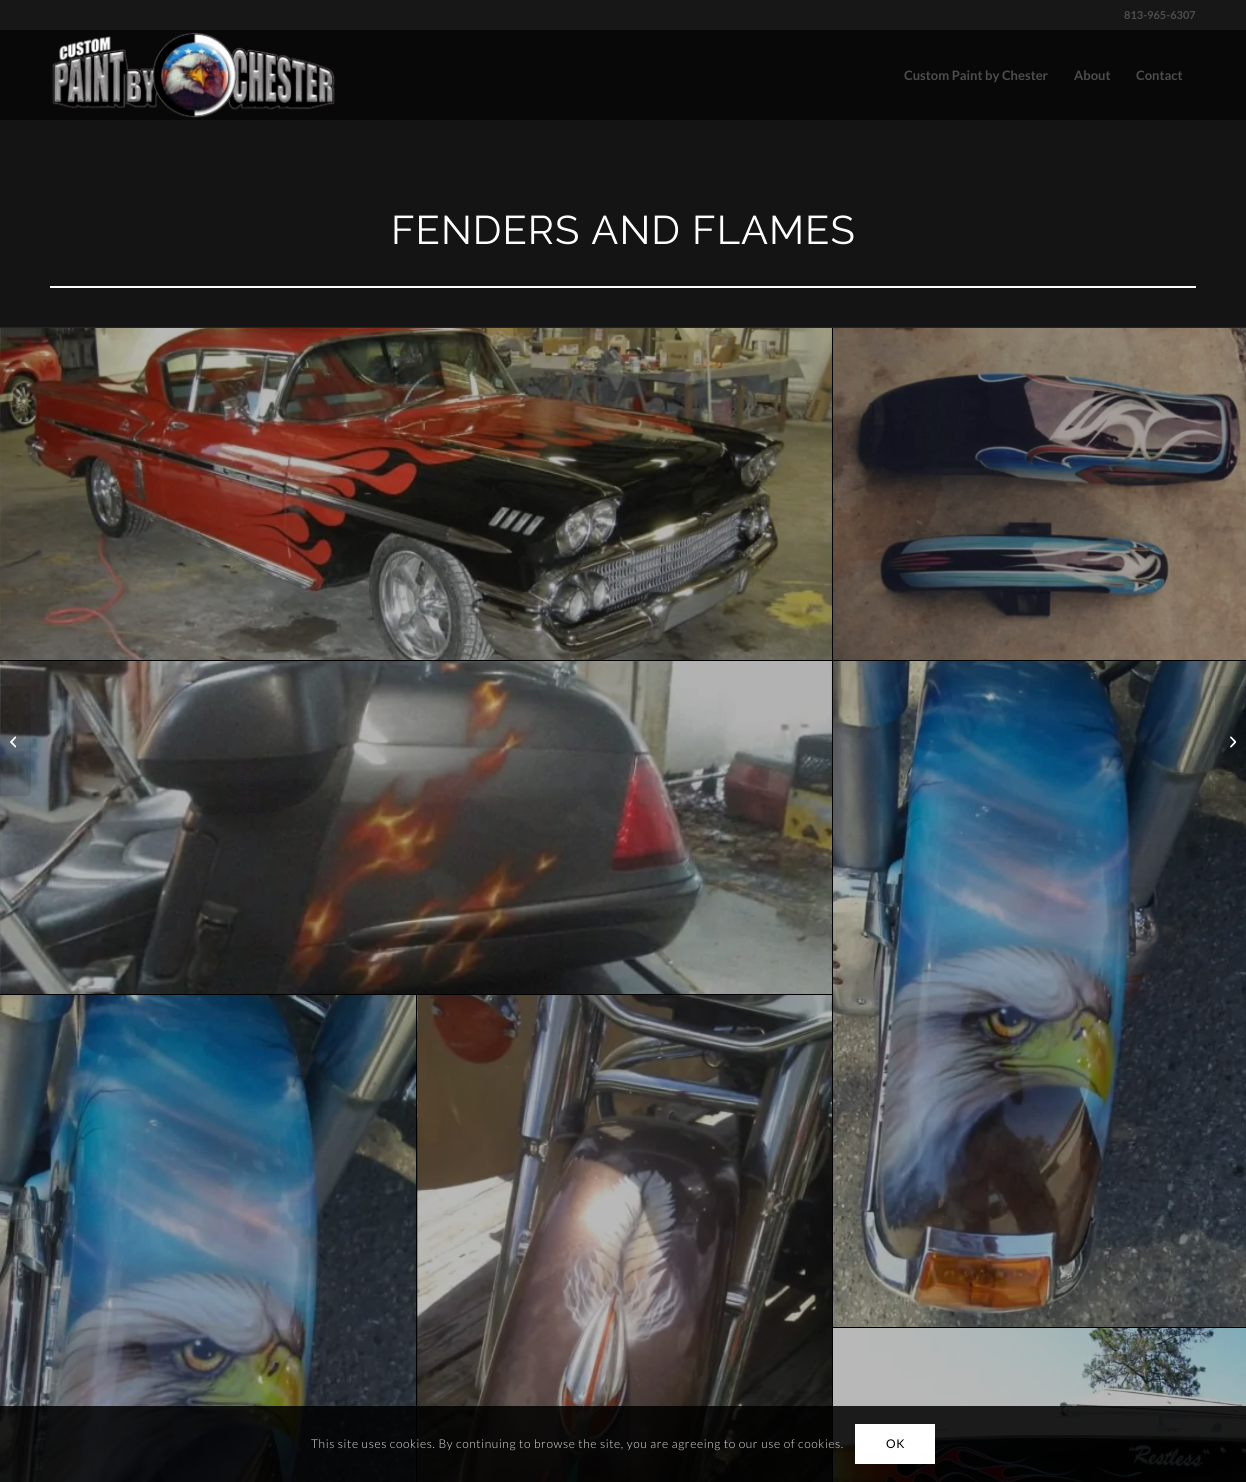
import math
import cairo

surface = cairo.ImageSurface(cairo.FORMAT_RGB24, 1246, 1482)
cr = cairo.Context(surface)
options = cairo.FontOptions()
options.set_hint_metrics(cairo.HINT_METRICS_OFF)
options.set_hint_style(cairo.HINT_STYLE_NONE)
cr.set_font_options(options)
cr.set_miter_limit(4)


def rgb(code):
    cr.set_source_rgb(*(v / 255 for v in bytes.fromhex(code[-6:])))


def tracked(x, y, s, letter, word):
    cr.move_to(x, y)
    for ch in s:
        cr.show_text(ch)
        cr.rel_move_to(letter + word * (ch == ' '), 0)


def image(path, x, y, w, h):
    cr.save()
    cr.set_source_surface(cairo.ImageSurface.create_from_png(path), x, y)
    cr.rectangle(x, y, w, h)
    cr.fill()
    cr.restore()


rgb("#141414")
cr.paint()
rgb("#171717")
cr.rectangle(0, 0, 1246, 30)
cr.fill()
rgb("#080808")
cr.rectangle(0, 30, 1246, 90)
cr.fill()
image("img/1.png", 51, 32, 284, 86)
for x, y, w, h, color in [
    (50, 286, 1146, 2, "#ffffff"),
    (0, 327, 1246, 1, "#242424"),
    (0, 328, 1246, 1154, "#000000"),
    (0, 328, 832, 332, "#141414"),
]:
    rgb(color)
    cr.rectangle(x, y, w, h)
    cr.fill()
image("img/2.png", 0, 328, 832, 332)
cr.rectangle(833, 328, 413, 332)
cr.fill()
image("img/3.png", 833, 328, 413, 332)
cr.rectangle(0, 661, 832, 333)
cr.fill()
image("img/4.png", 0, 661, 832, 333)
image("img/5.png", 833, 661, 413, 666)
image("img/6.png", 0, 995, 416, 487)
cr.rectangle(417, 995, 415, 487)
cr.fill()
image("img/7.png", 417, 995, 415, 487)
cr.rectangle(833, 1328, 413, 154)
cr.fill()
image("img/8.png", 833, 1328, 413, 154)
cr.set_source_rgba(0, 0, 0, 0.1)
cr.new_path()
cr.move_to(0, 686)
cr.line_to(27, 686)
cr.curve_to(29, 686, 31, 688, 31, 690)
cr.line_to(31, 792)
cr.curve_to(31, 794, 29, 796, 27, 796)
cr.line_to(0, 796)
cr.close_path()
cr.fill()
image("img/9.png", 10, 736, 6, 12)
cr.new_path()
cr.move_to(1219, 686)
cr.line_to(1246, 686)
cr.line_to(1246, 796)
cr.line_to(1219, 796)
cr.curve_to(1217, 796, 1215, 794, 1215, 792)
cr.line_to(1215, 690)
cr.curve_to(1215, 688, 1217, 686, 1219, 686)
cr.close_path()
cr.fill()
image("img/10.png", 1230, 736, 6, 12)
cr.set_source_rgba(0, 0, 0, 0.85)
cr.rectangle(0, 1406, 1246, 76)
cr.fill()
rgb("#ffffff")
cr.rectangle(855, 1424, 80, 40)
cr.fill()
cr.select_font_face("Lato", cairo.FONT_SLANT_NORMAL, cairo.FONT_WEIGHT_BOLD)
cr.set_font_size(11)
rgb("#4d4d4d")
cr.move_to(1124, 19)
cr.show_text("813-965-6307")
cr.set_font_size(13)
for x, y, s in [
    (904, 80, "Custom Paint by Chester"),
    (1074, 80, "About"),
    (1136, 80, "Contact"),
]:
    cr.move_to(x, y)
    cr.show_text(s)
cr.select_font_face("Raleway Thin")
cr.set_font_size(40)
rgb("#ffffff")
tracked(391, 244, "FENDERS AND FLAMES", 1, 0)
cr.select_font_face("Lato Light")
cr.set_font_size(12)
rgb("#e6e6e6")
tracked(311, 1448, "This site uses cookies. By continuing to browse the site, you are agreeing to our use of cookies.", 0.6, 0)
cr.select_font_face("Lato")
rgb("#000000")
tracked(886, 1448, "OK", 0.6, 0)
surface.write_to_png("page.png")
